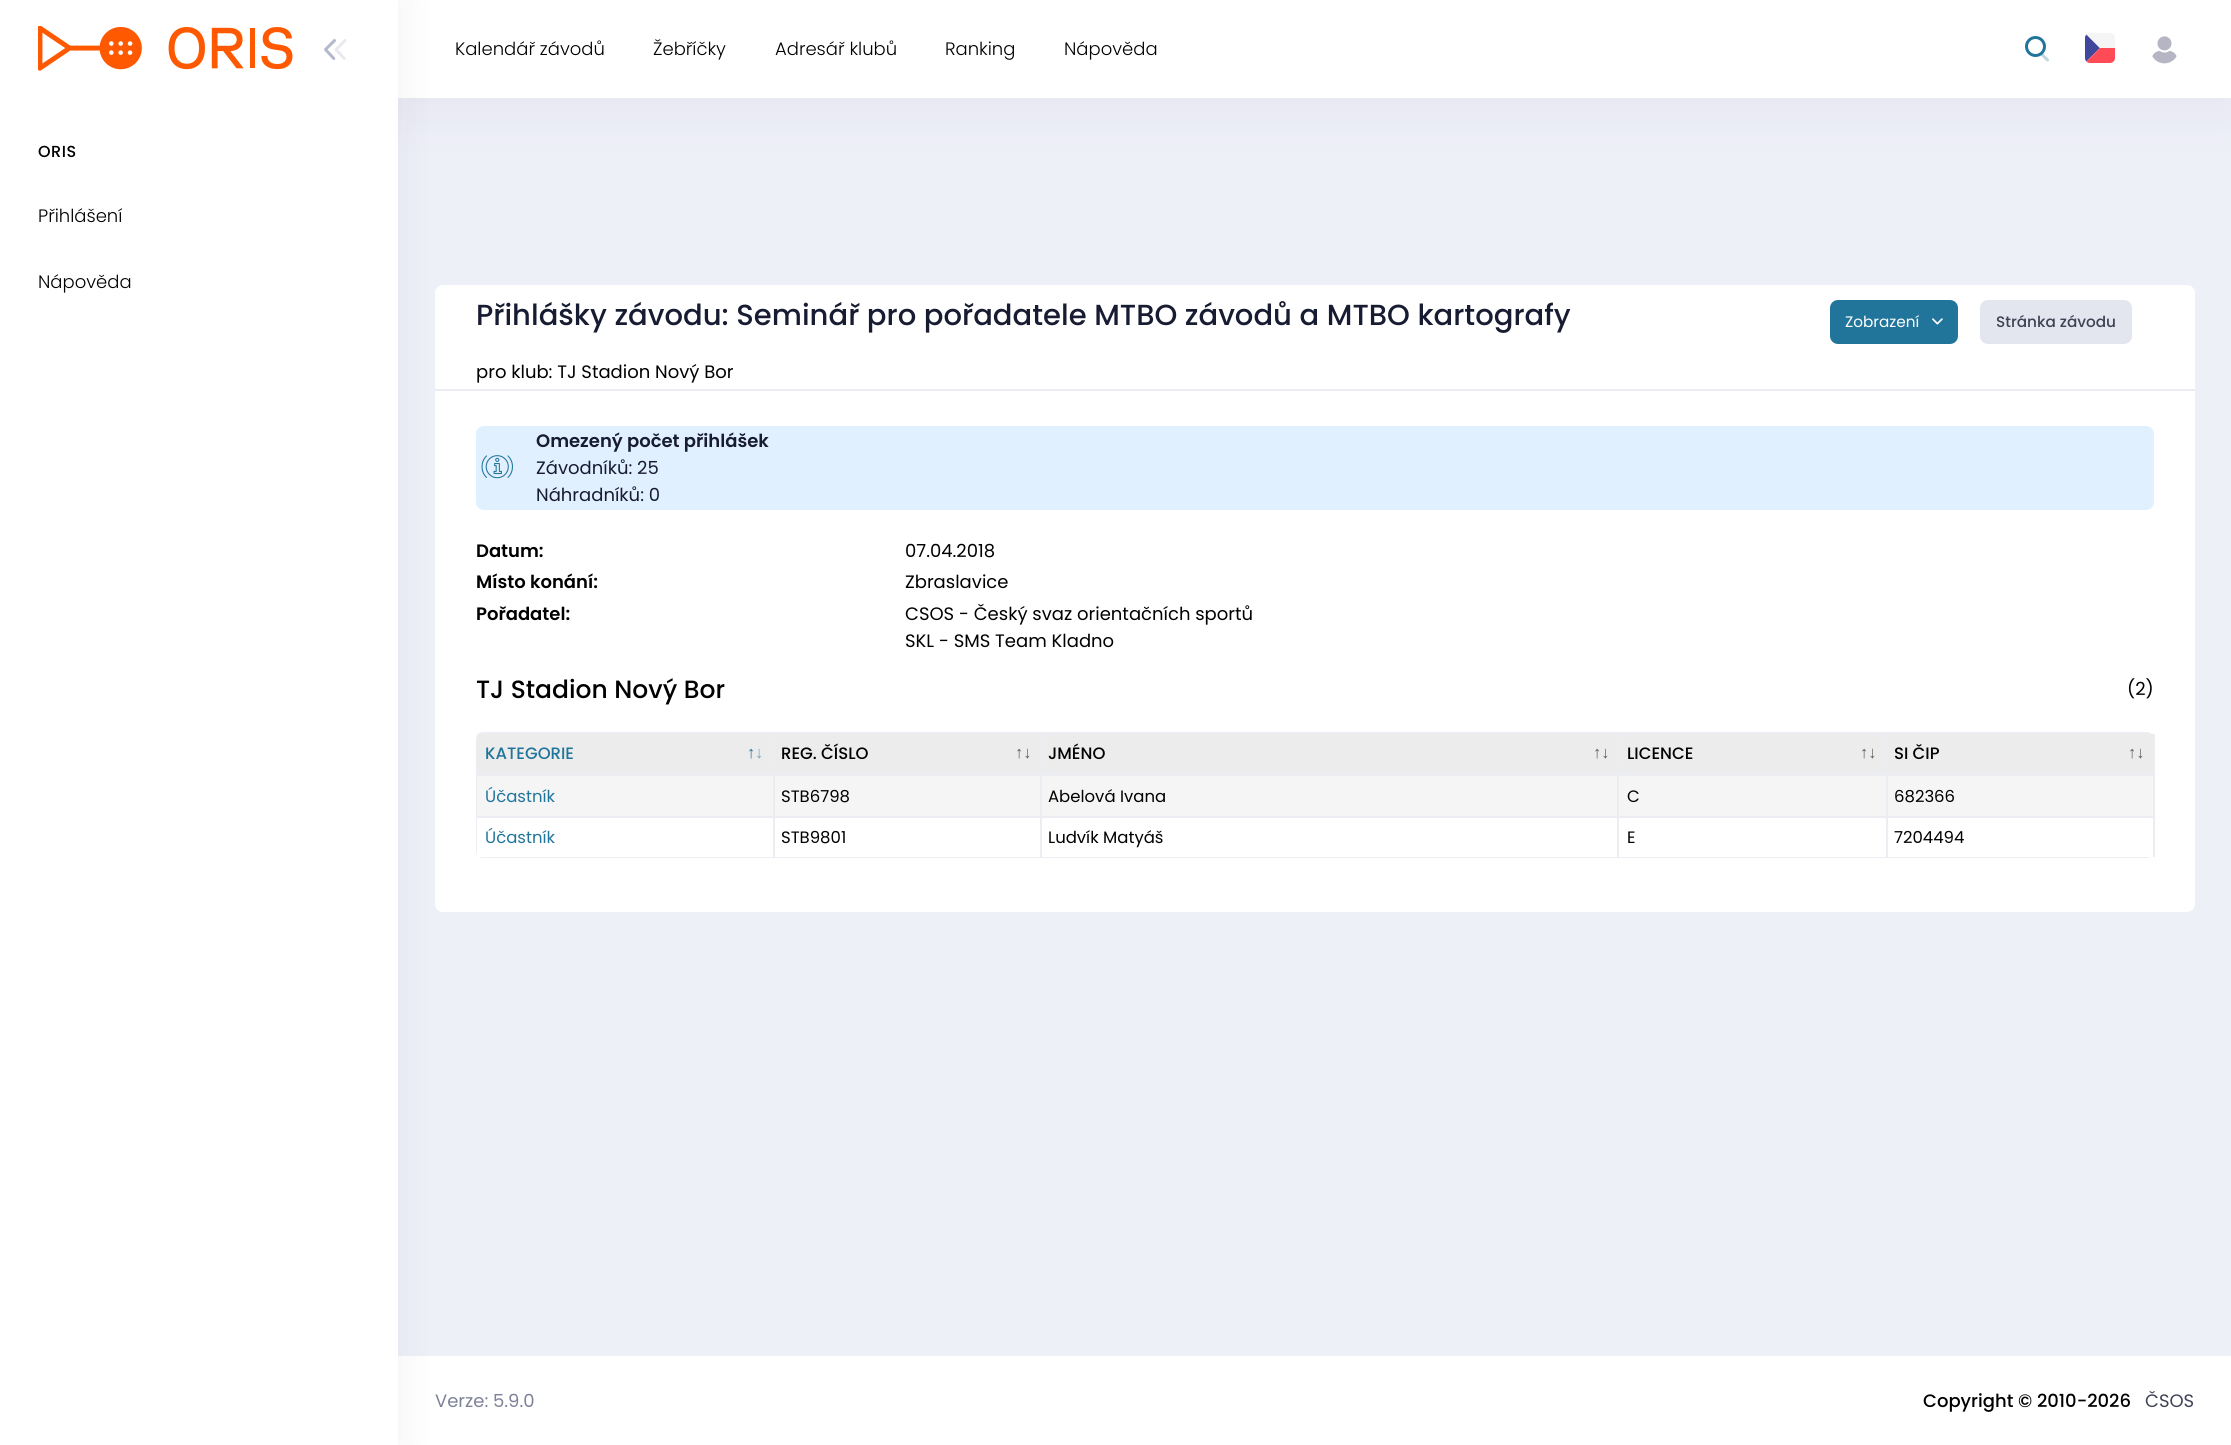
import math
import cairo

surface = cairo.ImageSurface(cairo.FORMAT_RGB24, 2231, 1445)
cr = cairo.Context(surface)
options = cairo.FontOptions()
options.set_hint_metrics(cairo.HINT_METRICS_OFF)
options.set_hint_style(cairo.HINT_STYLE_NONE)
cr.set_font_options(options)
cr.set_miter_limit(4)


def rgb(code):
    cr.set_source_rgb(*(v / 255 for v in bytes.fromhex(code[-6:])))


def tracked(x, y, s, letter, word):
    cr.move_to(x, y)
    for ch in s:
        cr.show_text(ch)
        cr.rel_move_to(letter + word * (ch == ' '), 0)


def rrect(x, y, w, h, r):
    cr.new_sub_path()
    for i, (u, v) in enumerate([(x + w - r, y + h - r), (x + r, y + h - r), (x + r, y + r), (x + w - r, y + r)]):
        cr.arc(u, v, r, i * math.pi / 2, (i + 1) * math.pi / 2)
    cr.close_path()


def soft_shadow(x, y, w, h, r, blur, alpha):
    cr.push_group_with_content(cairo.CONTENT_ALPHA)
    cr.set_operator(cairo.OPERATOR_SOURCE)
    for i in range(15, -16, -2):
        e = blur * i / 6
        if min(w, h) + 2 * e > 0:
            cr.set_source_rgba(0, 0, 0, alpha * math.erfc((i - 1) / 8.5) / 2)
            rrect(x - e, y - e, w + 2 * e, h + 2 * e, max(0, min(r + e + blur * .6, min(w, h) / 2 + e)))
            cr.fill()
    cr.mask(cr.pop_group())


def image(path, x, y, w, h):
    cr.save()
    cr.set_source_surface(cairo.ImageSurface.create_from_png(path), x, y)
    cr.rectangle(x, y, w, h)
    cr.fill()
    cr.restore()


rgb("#eef0f8")
cr.paint()
rgb("#523f69")
soft_shadow(398, 0, 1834, 98, 0, 30, 0.1)
rgb("#ffffff")
cr.rectangle(398, 0, 1833, 98)
cr.fill()
rrect(435, 285, 1760, 627, 8)
cr.fill()
rgb("#ebedf3")
cr.rectangle(435, 389, 1760, 2)
cr.fill()
rgb("#ffffff")
cr.rectangle(398, 1356, 1833, 89)
cr.fill()
rgb("#523f69")
soft_shadow(0, 0, 398, 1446, 0, 21, 0.08)
rgb("#ffffff")
cr.rectangle(0, 0, 398, 1445)
cr.fill()
image("img/1.png", 38, 26, 255, 45)
image("img/2.png", 324, 39, 23, 21)
image("img/3.png", 2025, 36, 24, 26)
image("img/4.png", 2085, 33, 30, 30)
image("img/5.png", 2152, 36, 25, 28)
rgb("#21759b")
rrect(1831, 301, 126, 42, 7)
cr.fill_preserve()
cr.stroke()
image("img/6.png", 1932, 318, 11, 7)
rgb("#e4e6ef")
rrect(1981, 301, 150, 42, 7)
cr.fill_preserve()
cr.stroke()
rgb("#e1f0ff")
rrect(476, 426, 1678, 84, 8)
cr.fill()
image("img/7.png", 481, 455, 32, 24)
rgb("#ebedf3")
cr.set_fill_rule(cairo.FILL_RULE_EVEN_ODD)
cr.new_path()
cr.move_to(483, 732)
cr.line_to(2146, 732)
cr.curve_to(2151, 732, 2154, 735, 2154, 740)
cr.line_to(2154, 850)
cr.curve_to(2154, 855, 2151, 858, 2146, 858)
cr.line_to(483, 858)
cr.curve_to(479, 858, 476, 855, 476, 850)
cr.line_to(476, 740)
cr.curve_to(476, 735, 479, 732, 483, 732)
cr.close_path()
cr.move_to(483, 734)
cr.line_to(2146, 734)
cr.curve_to(2151, 734, 2154, 736, 2154, 740)
cr.line_to(2154, 850)
cr.curve_to(2154, 854, 2151, 856, 2146, 856)
cr.line_to(483, 856)
cr.curve_to(480, 856, 477, 854, 477, 850)
cr.line_to(477, 740)
cr.curve_to(477, 736, 480, 734, 483, 734)
cr.close_path()
cr.fill()
for x, y, w, h, color in [
    (477, 734, 296, 39, "#ececec"),
    (773, 734, 1, 40, "#ebedf3"),
    (477, 776, 1676, 40, "#f5f5f5"),
    (477, 775, 297, 1, "#ebedf3"),
    (773, 774, 2, 42, "#ebedf3"),
    (477, 773, 297, 2, "#ebedf3"),
    (774, 734, 266, 39, "#ececec"),
    (1040, 734, 1, 40, "#ebedf3"),
    (774, 775, 267, 1, "#ebedf3"),
    (1040, 774, 2, 42, "#ebedf3"),
    (1041, 775, 846, 1, "#ebedf3"),
    (1617, 734, 2, 82, "#ebedf3"),
    (774, 773, 845, 2, "#ebedf3"),
    (1041, 734, 576, 39, "#ececec"),
    (1619, 734, 267, 39, "#ececec"),
    (1886, 734, 1, 40, "#ebedf3"),
    (1886, 774, 2, 42, "#ebedf3"),
    (1887, 775, 267, 1, "#ebedf3"),
    (2153, 734, 2, 82, "#ebedf3"),
    (1619, 773, 535, 2, "#ebedf3"),
    (1887, 734, 266, 39, "#ececec"),
    (477, 851, 1676, 6, "#ffffff"),
    (477, 816, 297, 2, "#ebedf3"),
    (773, 816, 2, 41, "#ebedf3"),
    (774, 816, 267, 2, "#ebedf3"),
    (1040, 816, 2, 41, "#ebedf3"),
    (1041, 816, 846, 2, "#ebedf3"),
    (1617, 816, 2, 41, "#ebedf3"),
    (1886, 816, 2, 41, "#ebedf3"),
    (1887, 816, 267, 2, "#ebedf3"),
    (2153, 816, 2, 41, "#ebedf3"),
]:
    rgb(color)
    cr.rectangle(x, y, w, h)
    cr.fill()
cr.select_font_face("Poppins Medium")
cr.set_font_size(16)
rgb("#000000")
tracked(38, 157, "ORIS", 0.5, 0)
cr.select_font_face("Poppins Light")
cr.set_font_size(18)
for x, y, s in [
    (38, 222, "Přihlášení"),
    (38, 288, "Nápověda"),
    (455, 55, "Kalendář závodů"),
    (653, 55, "Žebříčky"),
    (775, 55, "Adresář klubů"),
    (945, 55, "Ranking"),
    (1064, 55, "Nápověda"),
]:
    cr.move_to(x, y)
    cr.show_text(s)
cr.select_font_face("Poppins Medium")
cr.set_font_size(29.05)
rgb("#181c32")
cr.move_to(476, 325)
cr.show_text("Přihlášky závodu: Seminář pro pořadatele MTBO závodů a MTBO kartografy")
cr.select_font_face("Poppins")
cr.set_font_size(15.25)
rgb("#ffffff")
cr.move_to(1845, 327)
cr.show_text("Zobrazení")
cr.select_font_face("Poppins Medium")
rgb("#3f4254")
cr.move_to(1996, 327)
cr.show_text("Stránka závodu")
cr.select_font_face("Poppins")
cr.set_font_size(18)
rgb("#000000")
cr.move_to(476, 378)
cr.show_text("pro klub: TJ Stadion Nový Bor")
cr.select_font_face("Poppins SemiBold")
rgb("#181c32")
cr.move_to(536, 447)
cr.show_text("Omezený počet přihlášek")
cr.select_font_face("Poppins")
cr.move_to(536, 474)
cr.show_text("Závodníků: 25")
cr.move_to(536, 501)
cr.show_text("Náhradníků: 0")
cr.select_font_face("Poppins SemiBold")
rgb("#000000")
cr.move_to(476, 557)
cr.show_text("Datum:")
cr.select_font_face("Poppins")
cr.move_to(905, 557)
cr.show_text("07.04.2018")
cr.select_font_face("Poppins SemiBold")
cr.move_to(476, 588)
cr.show_text("Místo konání:")
cr.select_font_face("Poppins")
cr.move_to(905, 588)
cr.show_text("Zbraslavice")
cr.select_font_face("Poppins SemiBold")
cr.move_to(476, 620)
cr.show_text("Pořadatel:")
cr.select_font_face("Poppins")
cr.move_to(905, 620)
cr.show_text("CSOS - Český svaz orientačních sportů")
cr.move_to(905, 647)
cr.show_text("SKL - SMS Team Kladno")
cr.select_font_face("Poppins Medium")
cr.set_font_size(25)
cr.move_to(476, 698)
cr.show_text("TJ Stadion Nový Bor")
cr.select_font_face("Poppins")
cr.set_font_size(18)
cr.move_to(2127, 695)
cr.show_text("(2)")
cr.select_font_face("Poppins Medium")
cr.set_font_size(16.5)
rgb("#21759b")
cr.move_to(485, 759)
cr.show_text("KATEGORIE")
cr.select_font_face("Liberation Sans")
cr.move_to(747, 758)
cr.show_text("↑")
rgb("#72a5bb")
cr.move_to(755, 758)
cr.show_text("↓")
cr.select_font_face("Poppins Medium")
rgb("#000000")
cr.move_to(781, 759)
cr.show_text("REG. ČÍSLO")
cr.select_font_face("Liberation Sans")
rgb("#5e5e5e")
cr.move_to(1015, 758)
cr.show_text("↑↓")
cr.select_font_face("Poppins Medium")
rgb("#000000")
cr.move_to(1048, 759)
cr.show_text("JMÉNO")
cr.select_font_face("Liberation Sans")
rgb("#5e5e5e")
cr.move_to(1593, 758)
cr.show_text("↑↓")
cr.select_font_face("Poppins Medium")
rgb("#000000")
cr.move_to(1627, 759)
cr.show_text("LICENCE")
cr.select_font_face("Liberation Sans")
rgb("#5e5e5e")
cr.move_to(1860, 758)
cr.show_text("↑↓")
cr.select_font_face("Poppins Medium")
rgb("#000000")
cr.move_to(1894, 759)
cr.show_text("SI ČIP")
cr.select_font_face("Liberation Sans")
rgb("#5e5e5e")
cr.move_to(2128, 758)
cr.show_text("↑↓")
cr.select_font_face("Poppins")
rgb("#21759b")
cr.move_to(485, 802)
cr.show_text("Účastník")
rgb("#000000")
for x, y, s in [
    (781, 802, "STB6798"),
    (1048, 802, "Abelová Ivana"),
    (1627, 802, "C"),
    (1894, 802, "682366"),
]:
    cr.move_to(x, y)
    cr.show_text(s)
rgb("#21759b")
cr.move_to(485, 843)
cr.show_text("Účastník")
rgb("#000000")
for x, y, s in [
    (781, 843, "STB9801"),
    (1048, 843, "Ludvík Matyáš"),
    (1627, 843, "E"),
    (1894, 843, "7204494"),
]:
    cr.move_to(x, y)
    cr.show_text(s)
cr.set_font_size(18)
rgb("#7e8299")
cr.move_to(435, 1407)
cr.show_text("Verze: 5.9.0")
cr.select_font_face("Poppins Medium")
rgb("#000000")
cr.move_to(1923, 1407)
cr.show_text("Copyright © 2010-2026")
cr.select_font_face("Poppins")
rgb("#3f4254")
cr.move_to(2145, 1407)
cr.show_text("ČSOS")
surface.write_to_png("page.png")
